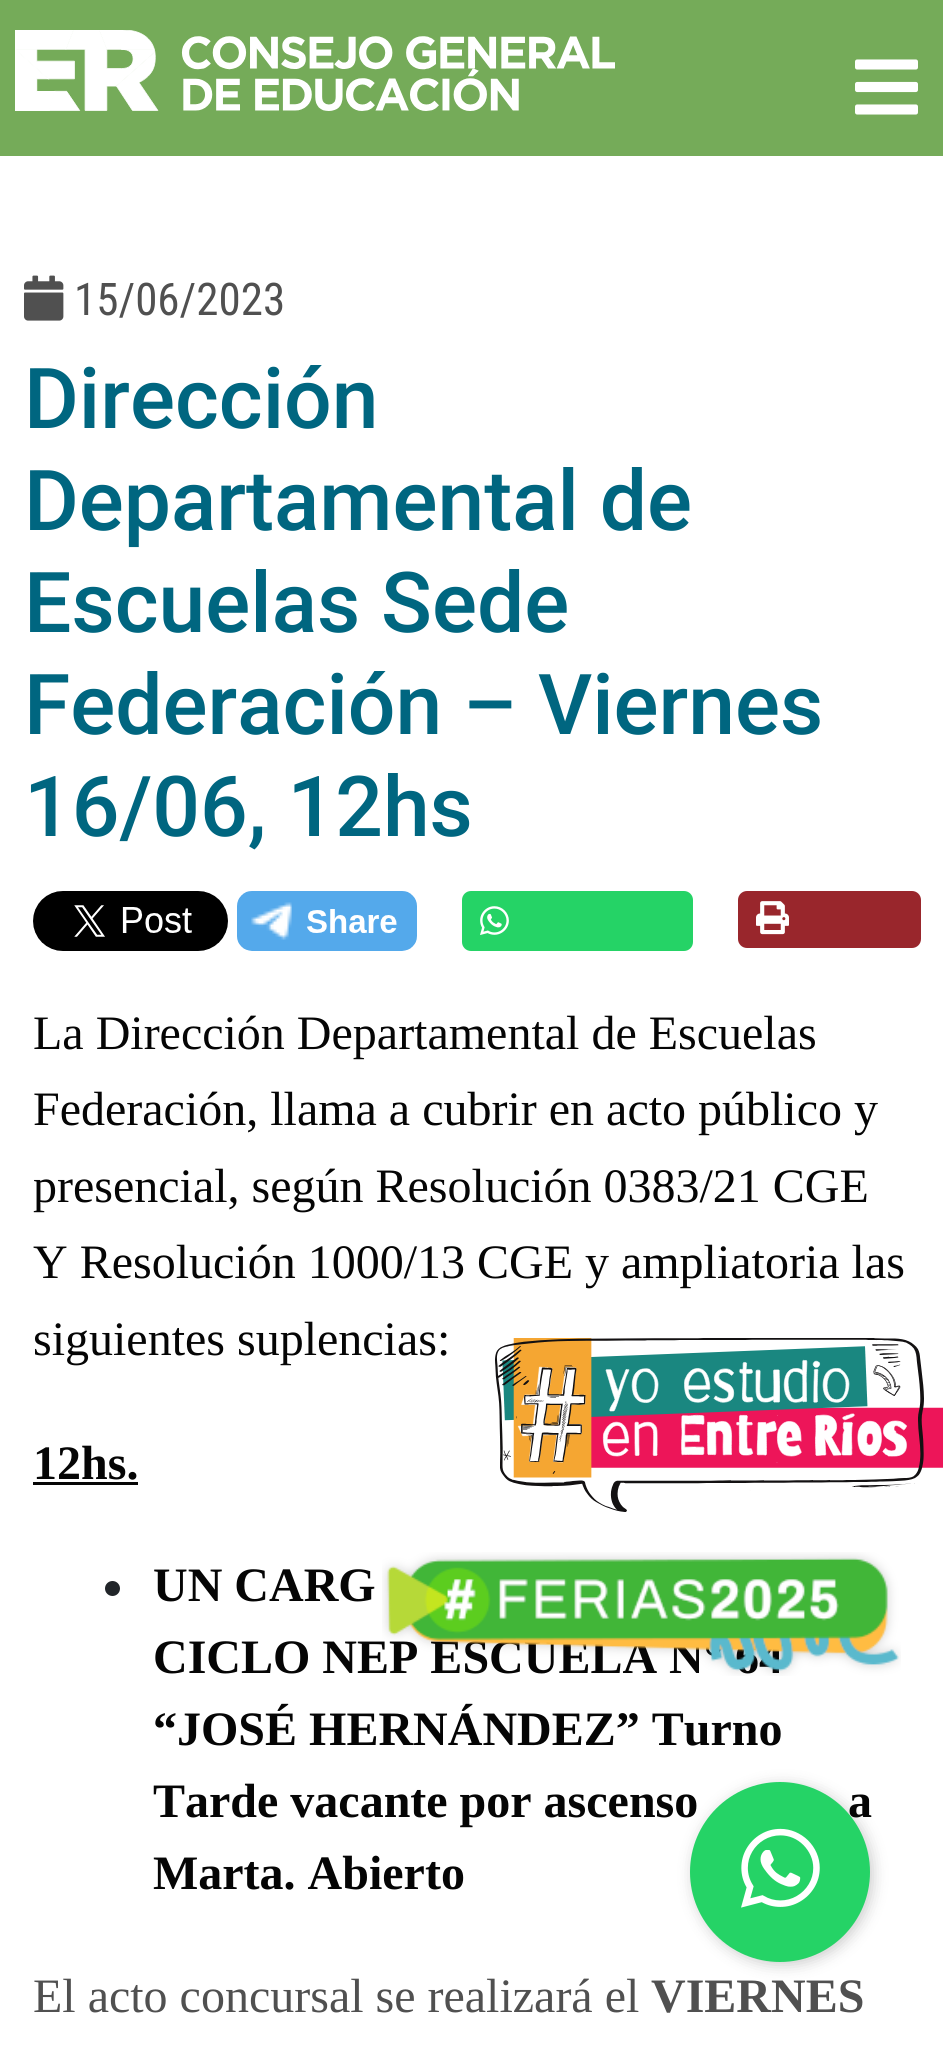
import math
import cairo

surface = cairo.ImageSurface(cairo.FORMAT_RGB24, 943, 2051)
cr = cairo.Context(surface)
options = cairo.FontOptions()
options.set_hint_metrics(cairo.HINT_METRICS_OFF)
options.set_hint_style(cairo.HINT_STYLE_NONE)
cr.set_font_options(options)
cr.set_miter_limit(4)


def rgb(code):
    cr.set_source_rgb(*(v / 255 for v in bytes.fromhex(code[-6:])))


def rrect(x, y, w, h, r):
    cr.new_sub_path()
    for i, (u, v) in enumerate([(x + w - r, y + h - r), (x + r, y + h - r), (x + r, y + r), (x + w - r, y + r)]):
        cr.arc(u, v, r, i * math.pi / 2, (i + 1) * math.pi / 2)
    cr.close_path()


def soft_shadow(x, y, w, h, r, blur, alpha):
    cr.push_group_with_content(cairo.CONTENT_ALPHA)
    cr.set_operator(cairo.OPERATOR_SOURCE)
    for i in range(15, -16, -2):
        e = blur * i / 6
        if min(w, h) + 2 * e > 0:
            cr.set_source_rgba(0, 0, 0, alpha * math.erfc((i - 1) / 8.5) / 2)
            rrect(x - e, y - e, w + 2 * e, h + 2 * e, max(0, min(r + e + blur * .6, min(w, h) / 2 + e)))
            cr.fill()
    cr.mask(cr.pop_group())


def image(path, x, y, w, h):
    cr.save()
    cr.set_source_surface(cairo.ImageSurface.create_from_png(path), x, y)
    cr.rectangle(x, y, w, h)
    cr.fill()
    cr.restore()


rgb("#ffffff")
cr.paint()
rgb("#75ab59")
cr.rectangle(0, 0, 943, 156)
cr.fill()
image("img/1.png", 15, 30, 600, 81)
image("img/2.png", 855, 59, 63, 56)
image("img/3.png", 24, 275, 40, 46)
image("img/4.png", 33, 891, 195, 60)
image("img/5.png", 237, 891, 180, 60)
rgb("#25d366")
rrect(462, 891, 231, 60, 9)
cr.fill()
image("img/6.png", 480, 906, 29, 29)
rgb("#99262c")
rrect(738, 891, 183, 57, 9)
cr.fill()
image("img/7.png", 756, 901, 33, 34)
rgb("#050505")
cr.rectangle(33, 1482, 105, 3)
cr.fill()
rgb("#212529")
cr.arc(112.5, 1588.5, 7.5, 0, 2 * math.pi)
cr.fill()
image("img/8.png", 495, 1338, 448, 174)
rgb("#000000")
soft_shadow(693, 1785, 180, 180, 90, 7.5, 0.2)
cr.select_font_face("Roboto Condensed")
cr.set_font_size(45)
rgb("#505050")
cr.move_to(74, 315)
cr.show_text("15/06/2023")
cr.select_font_face("Roboto Medium")
cr.set_font_size(84)
rgb("#006680")
for x, y, s in [
    (24, 428, "Dirección"),
    (24, 530, "Departamental de"),
    (24, 632, "Escuelas Sede"),
    (24, 734, "Federación – Viernes"),
    (24, 836, "16/06, 12hs"),
]:
    cr.move_to(x, y)
    cr.show_text(s)
cr.select_font_face("Liberation Serif")
cr.set_font_size(48)
rgb("#050505")
for x, y, s in [
    (33, 1049, "La Dirección Departamental de Escuelas"),
    (33, 1125, "Federación, llama a cubrir en acto público y"),
    (33, 1202, "presencial, según Resolución 0383/21 CGE"),
    (33, 1278, "Y Resolución 1000/13 CGE y ampliatoria las"),
    (33, 1355, "siguientes suplencias:"),
]:
    cr.move_to(x, y)
    cr.show_text(s)
cr.select_font_face("Liberation Serif", cairo.FONT_SLANT_NORMAL, cairo.FONT_WEIGHT_BOLD)
for x, y, s in [
    (33, 1479, "12hs."),
    (153, 1601, "UN CARG"),
    (153, 1673, "CICLO NEP ESCUELA N° 64"),
    (153, 1745, "“JOSÉ HERNÁNDEZ” Turno"),
    (153, 1817, "Tarde vacante por ascenso"),
    (848, 1817, "a"),
    (153, 1889, "Marta. Abierto"),
]:
    cr.move_to(x, y)
    cr.show_text(s)
cr.select_font_face("Liberation Serif")
rgb("#505050")
cr.move_to(33, 2012)
cr.show_text("El acto concursal se realizará el")
cr.select_font_face("Liberation Serif", cairo.FONT_SLANT_NORMAL, cairo.FONT_WEIGHT_BOLD)
cr.move_to(651, 2012)
cr.show_text("VIERNES")
image("img/9.png", 382, 1552, 519, 124)
rgb("#25d366")
cr.arc(780, 1872, 90, 0, 2 * math.pi)
cr.fill()
image("img/10.png", 741, 1828, 79, 80)
surface.write_to_png("page.png")
